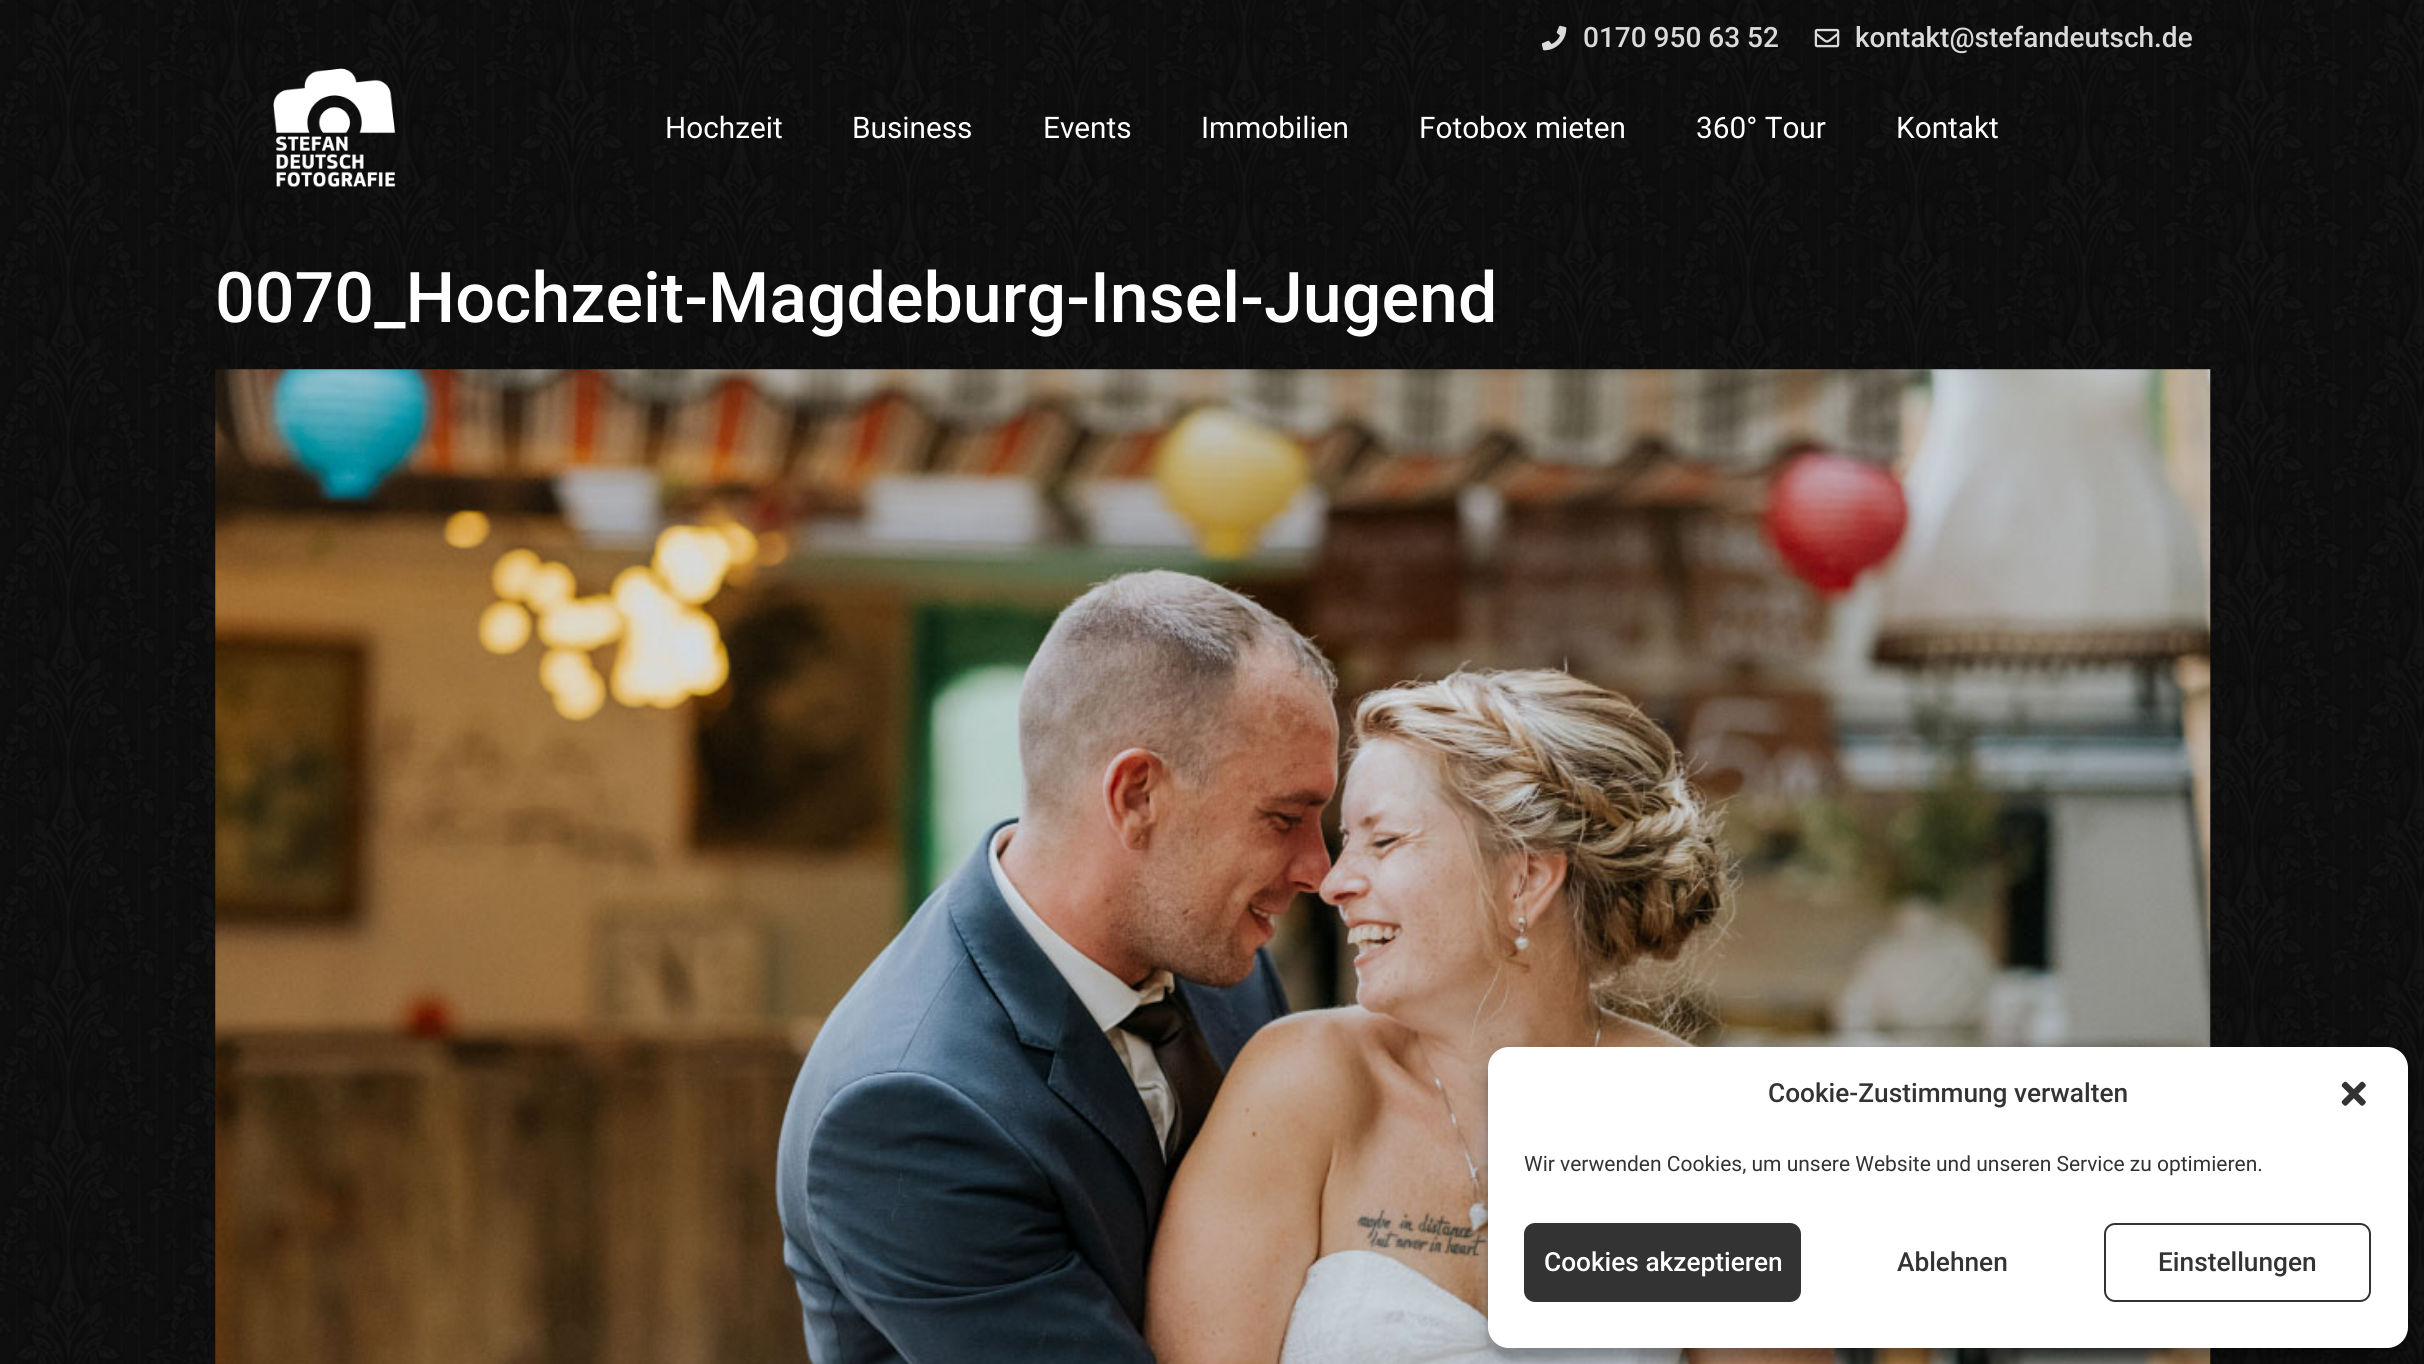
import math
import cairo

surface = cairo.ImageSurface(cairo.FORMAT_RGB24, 2424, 1364)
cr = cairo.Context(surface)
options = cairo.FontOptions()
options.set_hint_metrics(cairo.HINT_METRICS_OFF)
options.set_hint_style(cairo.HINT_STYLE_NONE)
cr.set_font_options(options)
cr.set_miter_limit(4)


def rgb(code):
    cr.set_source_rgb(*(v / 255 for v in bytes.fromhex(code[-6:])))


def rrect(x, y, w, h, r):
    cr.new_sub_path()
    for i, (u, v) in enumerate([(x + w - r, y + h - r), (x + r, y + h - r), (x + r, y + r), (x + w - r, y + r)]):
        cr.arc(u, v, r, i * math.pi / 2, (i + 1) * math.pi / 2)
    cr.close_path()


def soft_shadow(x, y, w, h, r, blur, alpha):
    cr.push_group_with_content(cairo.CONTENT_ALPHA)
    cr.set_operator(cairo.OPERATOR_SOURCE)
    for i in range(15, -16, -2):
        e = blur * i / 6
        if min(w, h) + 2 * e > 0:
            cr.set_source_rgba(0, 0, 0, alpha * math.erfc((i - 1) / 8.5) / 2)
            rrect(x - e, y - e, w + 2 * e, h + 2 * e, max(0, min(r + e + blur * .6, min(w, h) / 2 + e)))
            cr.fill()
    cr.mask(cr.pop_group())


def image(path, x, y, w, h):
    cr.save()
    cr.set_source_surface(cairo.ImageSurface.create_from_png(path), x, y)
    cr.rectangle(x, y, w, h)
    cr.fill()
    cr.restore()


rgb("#ffffff")
cr.paint()
image("img/1.png", 0, 0, 2424, 1364)
image("img/2.png", 1542, 25, 25, 26)
image("img/3.png", 1814, 28, 26, 20)
image("img/4.png", 273, 68, 123, 120)
image("img/5.png", 215, 369, 1996, 995)
rgb("#000000")
soft_shadow(1488, 1057, 920, 301, 21, 5, 0.23)
soft_shadow(1488, 1064, 920, 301, 21, 17.5, 0.19)
rgb("#ffffff")
rrect(1489, 1048, 918, 299, 20)
cr.fill_preserve()
cr.stroke()
image("img/6.png", 2341, 1081, 25, 25)
rgb("#333333")
rrect(1525, 1224, 275, 77, 10)
cr.fill_preserve()
cr.stroke()
rrect(2105, 1224, 265, 77, 10)
cr.stroke()
cr.select_font_face("Roboto Medium")
cr.set_font_size(28)
rgb("#dadada")
cr.move_to(1583, 47)
cr.show_text("0170 950 63 52")
cr.move_to(1855, 47)
cr.show_text("kontakt@stefandeutsch.de")
cr.select_font_face("Roboto")
cr.set_font_size(29.75)
rgb("#ffffff")
for x, y, s in [
    (665, 138, "Hochzeit"),
    (852, 138, "Business"),
    (1043, 138, "Events"),
    (1201, 138, "Immobilien"),
    (1419, 138, "Fotobox mieten"),
    (1696, 138, "360° Tour"),
    (1896, 138, "Kontakt"),
]:
    cr.move_to(x, y)
    cr.show_text(s)
cr.select_font_face("Roboto Medium")
cr.set_font_size(70)
cr.move_to(215, 322)
cr.show_text("0070_Hochzeit-Magdeburg-Insel-Jugend")
cr.set_font_size(26.25)
rgb("#333333")
cr.move_to(1768, 1102)
cr.show_text("Cookie-Zustimmung verwalten")
cr.select_font_face("Roboto")
cr.set_font_size(21)
cr.move_to(1524, 1171)
cr.show_text("Wir verwenden Cookies, um unsere Website und unseren Service zu optimieren.")
cr.select_font_face("Roboto Medium")
cr.set_font_size(26.25)
rgb("#ffffff")
cr.move_to(1544, 1271)
cr.show_text("Cookies akzeptieren")
rgb("#333333")
cr.move_to(1897, 1271)
cr.show_text("Ablehnen")
cr.move_to(2158, 1271)
cr.show_text("Einstellungen")
surface.write_to_png("page.png")
